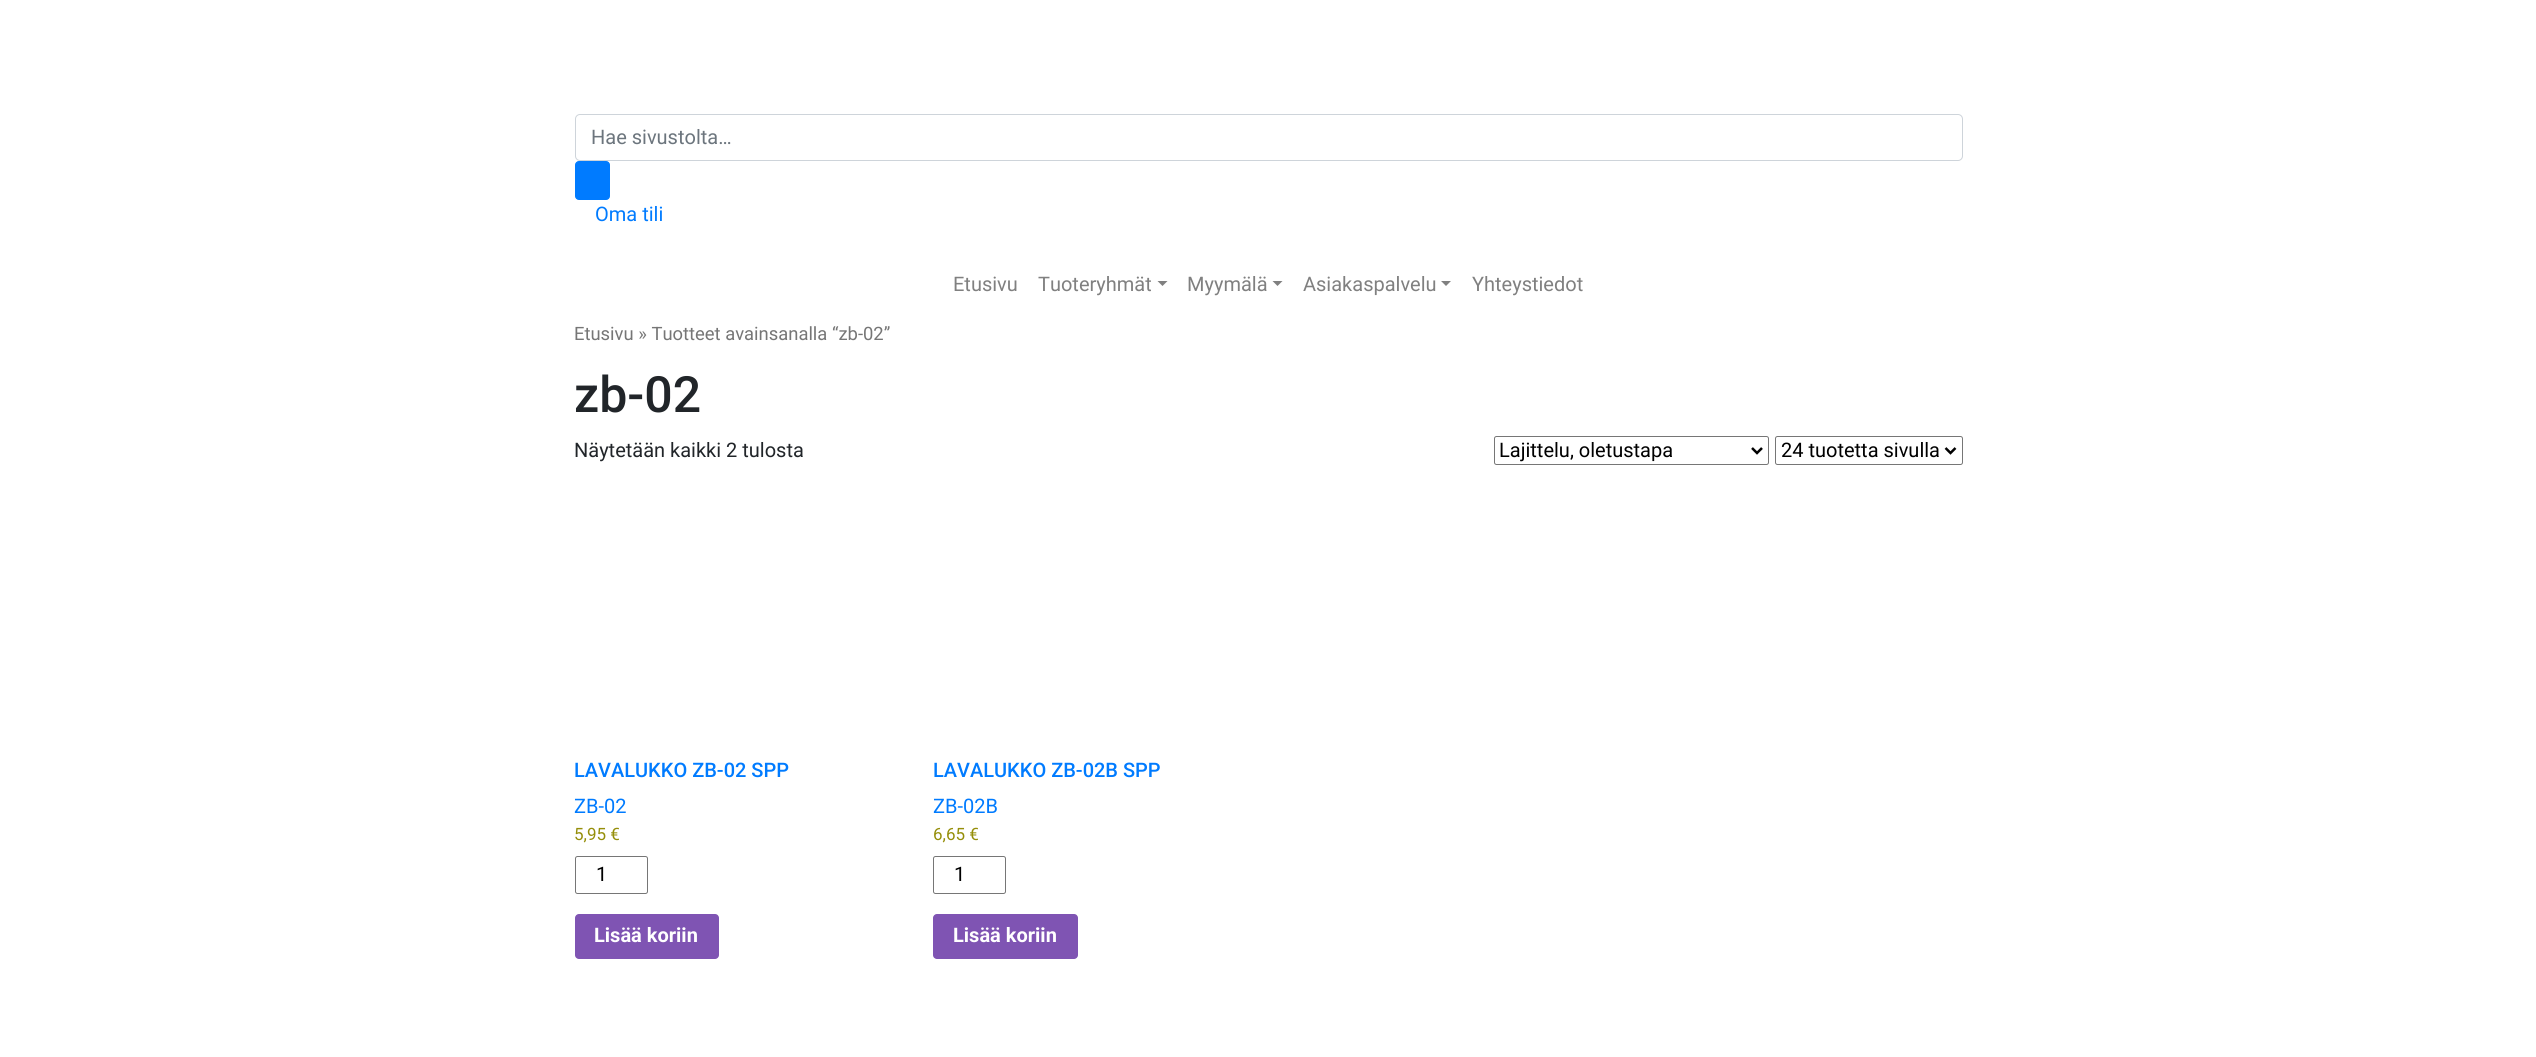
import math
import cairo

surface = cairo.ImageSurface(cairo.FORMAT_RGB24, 2536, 1057)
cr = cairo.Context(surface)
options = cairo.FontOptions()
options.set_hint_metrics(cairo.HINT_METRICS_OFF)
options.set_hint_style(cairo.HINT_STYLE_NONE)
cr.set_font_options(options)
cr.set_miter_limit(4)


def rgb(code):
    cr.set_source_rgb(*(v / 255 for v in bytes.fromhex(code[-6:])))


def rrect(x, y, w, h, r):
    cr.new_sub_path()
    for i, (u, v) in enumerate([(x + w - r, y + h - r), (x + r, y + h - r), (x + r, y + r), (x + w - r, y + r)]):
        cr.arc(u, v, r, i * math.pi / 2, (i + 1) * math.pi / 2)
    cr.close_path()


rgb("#ffffff")
cr.paint()
rrect(575.5, 114.5, 1387, 46, 4.5)
rgb("#ced4da")
cr.set_line_width(1)
cr.stroke()
rgb("#007bff")
rrect(575.5, 161.5, 34, 38, 3.5)
cr.fill_preserve()
cr.stroke()
rgb("#808080")
cr.new_path()
cr.move_to(1157.5, 281)
cr.line_to(1167.5, 281)
cr.line_to(1162.5, 286)
cr.close_path()
cr.fill()
cr.new_path()
cr.move_to(1272.5, 281)
cr.line_to(1282.5, 281)
cr.line_to(1277.5, 286)
cr.close_path()
cr.fill()
cr.new_path()
cr.move_to(1441, 281)
cr.line_to(1451, 281)
cr.line_to(1446, 286)
cr.close_path()
cr.fill()
rrect(1494.5, 436.5, 274, 28, 2)
rgb("#767676")
cr.stroke()
cr.new_path()
cr.move_to(1752, 448)
cr.line_to(1757, 453)
cr.line_to(1762, 448)
rgb("#000000")
cr.set_line_width(2.5)
cr.stroke()
rrect(1775.5, 436.5, 187, 28, 2)
rgb("#767676")
cr.set_line_width(1)
cr.stroke()
cr.new_path()
cr.move_to(1945.5, 448)
cr.line_to(1950.5, 453)
cr.line_to(1955.5, 448)
rgb("#000000")
cr.set_line_width(2.5)
cr.stroke()
rrect(575.5, 856.5, 72, 37, 2)
rgb("#767676")
cr.set_line_width(1)
cr.stroke()
rgb("#7f54b3")
rrect(575, 914, 144, 45, 4)
cr.fill()
rrect(933.5, 856.5, 72, 37, 2)
rgb("#767676")
cr.stroke()
rgb("#7f54b3")
rrect(933, 914, 145, 45, 4)
cr.fill()
cr.select_font_face("Roboto")
cr.set_font_size(20)
rgb("#6c757d")
cr.move_to(591, 144)
cr.show_text("Hae sivustolta…")
rgb("#007bff")
cr.move_to(595, 221)
cr.show_text("Oma tili")
rgb("#808080")
for x, y, s in [
    (953, 291, "Etusivu"),
    (1038, 291, "Tuoteryhmät"),
    (1187, 291, "Myymälä"),
    (1303, 291, "Asiakaspalvelu"),
    (1472, 291, "Yhteystiedot"),
]:
    cr.move_to(x, y)
    cr.show_text(s)
cr.set_font_size(18.4)
rgb("#767676")
cr.move_to(574, 340)
cr.show_text("Etusivu » Tuotteet avainsanalla “zb-02”")
cr.select_font_face("Roboto Medium")
cr.set_font_size(50)
rgb("#212529")
cr.move_to(574, 412)
cr.show_text("zb-02")
cr.select_font_face("Roboto")
cr.set_font_size(20)
cr.move_to(574, 457)
cr.show_text("Näytetään kaikki 2 tulosta")
rgb("#000000")
cr.move_to(1499, 457)
cr.show_text("Lajittelu, oletustapa")
cr.move_to(1781, 457)
cr.show_text("24 tuotetta sivulla")
cr.select_font_face("Roboto Medium")
rgb("#007bff")
cr.move_to(574, 777)
cr.show_text("LAVALUKKO ZB-02 SPP")
cr.select_font_face("Roboto")
cr.move_to(574, 813)
cr.show_text("ZB-02")
cr.set_font_size(17)
rgb("#958e09")
cr.move_to(574, 840)
cr.show_text("5,95 €")
cr.set_font_size(20)
rgb("#000000")
cr.move_to(596, 881)
cr.show_text("1")
cr.select_font_face("Roboto", cairo.FONT_SLANT_NORMAL, cairo.FONT_WEIGHT_BOLD)
rgb("#ffffff")
cr.move_to(594, 942)
cr.show_text("Lisää koriin")
cr.select_font_face("Roboto Medium")
rgb("#007bff")
cr.move_to(933, 777)
cr.show_text("LAVALUKKO ZB-02B SPP")
cr.select_font_face("Roboto")
cr.move_to(933, 813)
cr.show_text("ZB-02B")
cr.set_font_size(17)
rgb("#958e09")
cr.move_to(933, 840)
cr.show_text("6,65 €")
cr.set_font_size(20)
rgb("#000000")
cr.move_to(954, 881)
cr.show_text("1")
cr.select_font_face("Roboto", cairo.FONT_SLANT_NORMAL, cairo.FONT_WEIGHT_BOLD)
rgb("#ffffff")
cr.move_to(953, 942)
cr.show_text("Lisää koriin")
surface.write_to_png("page.png")
